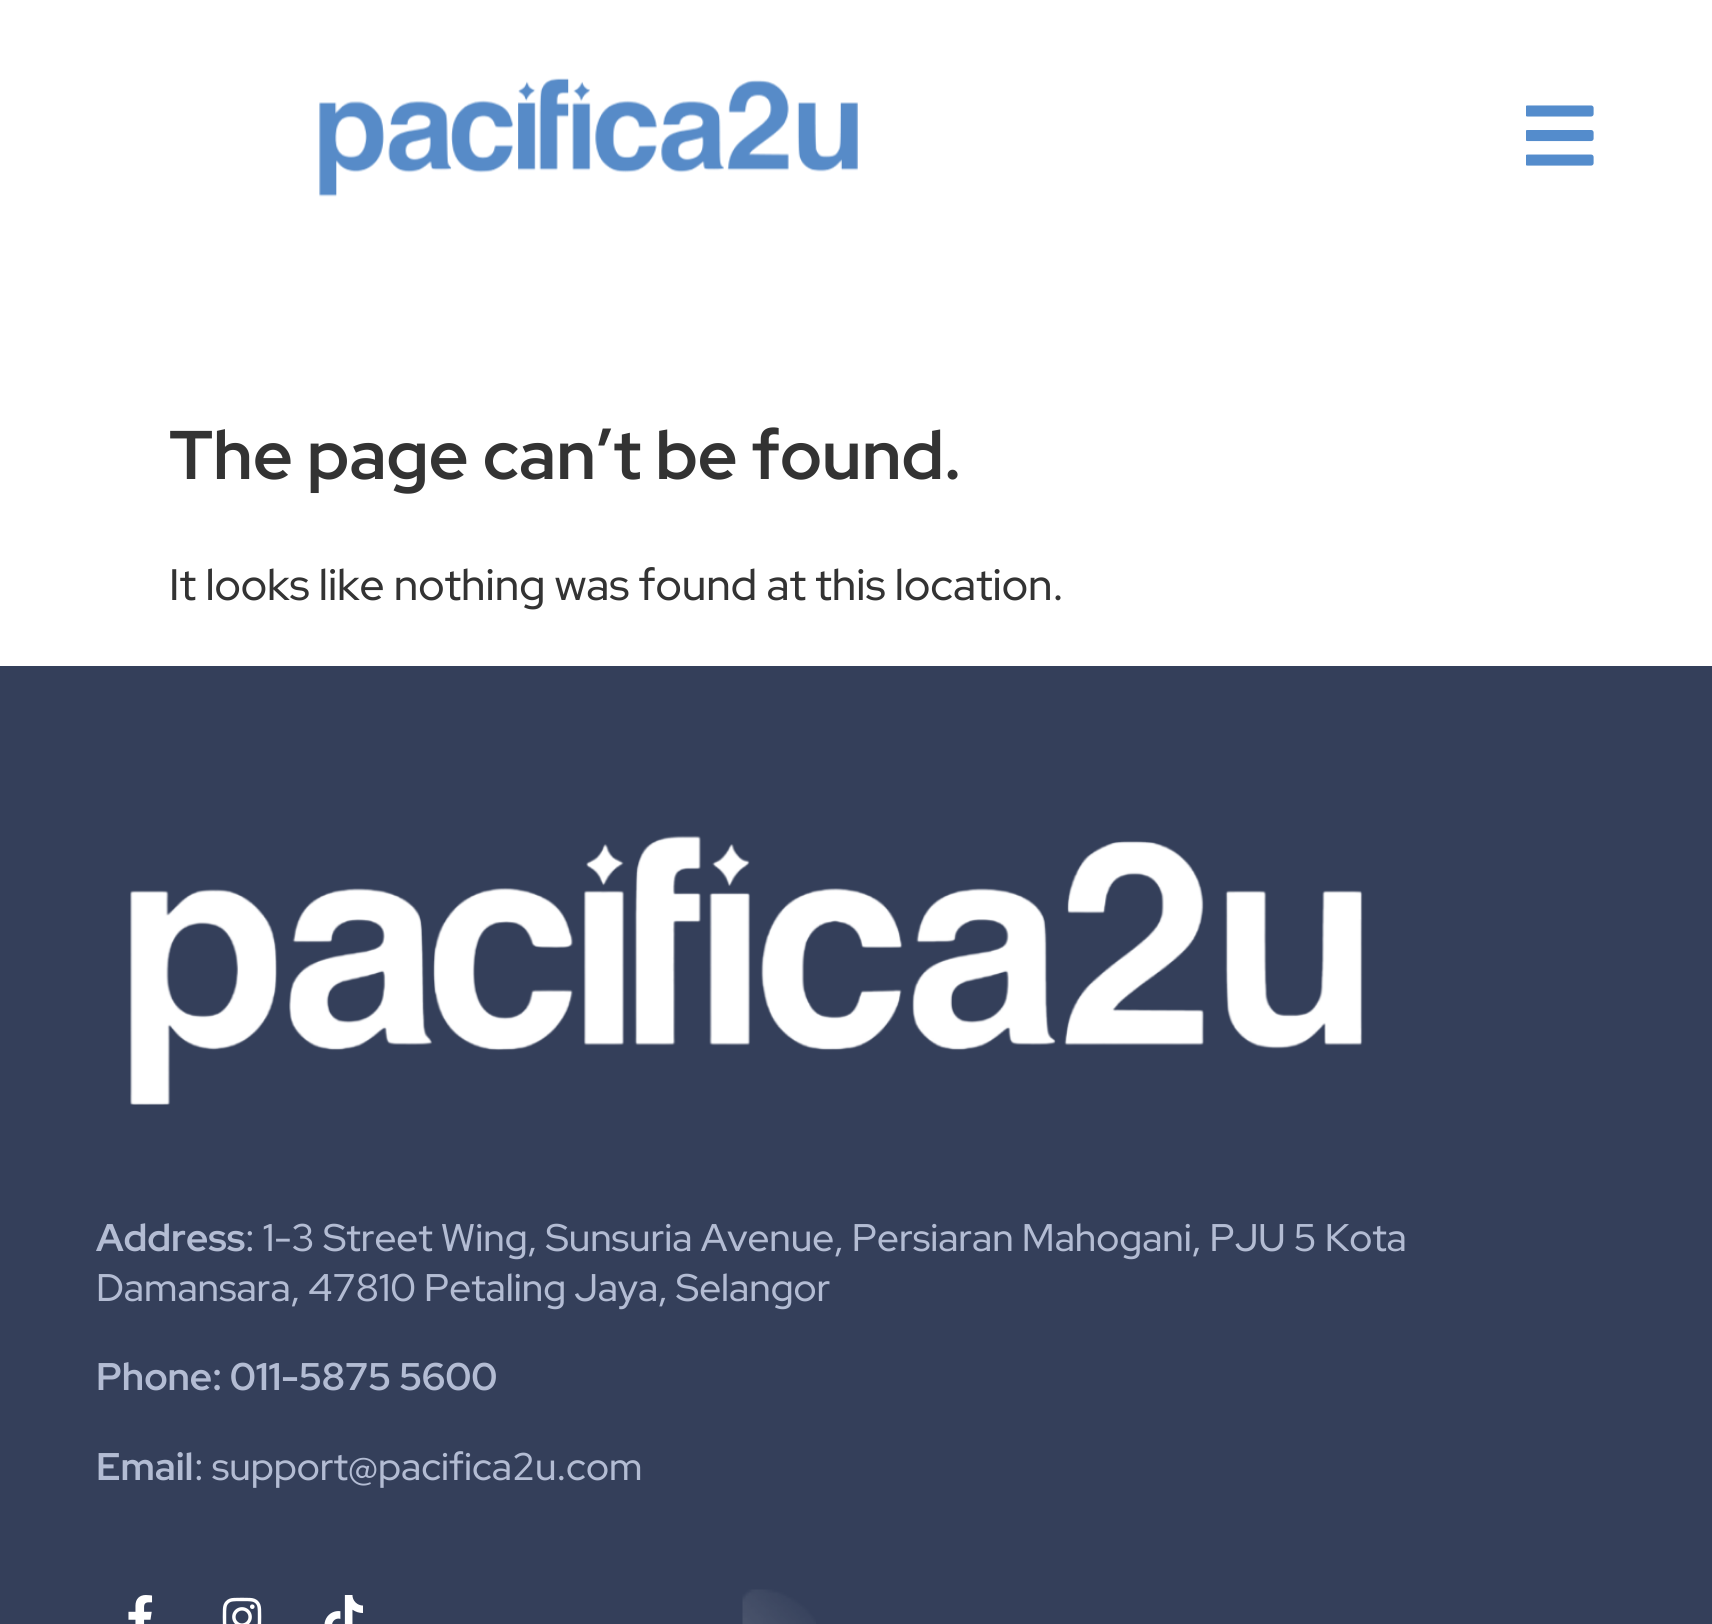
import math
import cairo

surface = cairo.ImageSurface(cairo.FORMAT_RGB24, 1712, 1624)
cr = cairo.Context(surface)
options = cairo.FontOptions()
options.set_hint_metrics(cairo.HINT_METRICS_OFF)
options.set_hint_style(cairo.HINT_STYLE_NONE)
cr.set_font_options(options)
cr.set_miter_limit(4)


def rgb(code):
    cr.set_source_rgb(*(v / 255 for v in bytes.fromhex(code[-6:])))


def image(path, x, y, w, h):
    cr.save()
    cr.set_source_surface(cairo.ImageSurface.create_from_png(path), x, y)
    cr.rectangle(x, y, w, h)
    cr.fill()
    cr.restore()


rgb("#ffffff")
cr.paint()
image("img/1.png", 319, 78, 539, 119)
image("img/2.png", 1526, 105, 68, 61)
rgb("#343f5a")
cr.rectangle(0, 666, 1712, 958)
cr.fill()
image("img/3.png", 130, 835, 1233, 270)
image("img/4.png", 128, 1595, 25, 29)
image("img/5.png", 222, 1597, 40, 27)
image("img/6.png", 324, 1595, 39, 29)
image("img/7.png", 742, 1589, 74, 35)
cr.select_font_face("Red Hat Display", cairo.FONT_SLANT_NORMAL, cairo.FONT_WEIGHT_BOLD)
cr.set_font_size(68.75)
rgb("#333333")
cr.move_to(169, 479)
cr.show_text("The page can’t be found.")
cr.select_font_face("Red Hat Display Medium")
cr.set_font_size(44)
cr.move_to(169, 600)
cr.show_text("It looks like nothing was found at this location.")
cr.select_font_face("Red Hat Display", cairo.FONT_SLANT_NORMAL, cairo.FONT_WEIGHT_BOLD)
cr.set_font_size(38.5)
rgb("#b3bcd3")
cr.move_to(96, 1251)
cr.show_text("Address")
cr.select_font_face("Red Hat Display Medium")
cr.move_to(245, 1251)
cr.show_text(": 1-3 Street Wing, Sunsuria Avenue, Persiaran Mahogani, PJU 5 Kota")
cr.move_to(96, 1301)
cr.show_text("Damansara, 47810 Petaling Jaya, Selangor")
cr.select_font_face("Red Hat Display", cairo.FONT_SLANT_NORMAL, cairo.FONT_WEIGHT_BOLD)
cr.move_to(96, 1390)
cr.show_text("Phone: 011-5875 5600")
cr.move_to(96, 1480)
cr.show_text("Email")
cr.select_font_face("Red Hat Display Medium")
cr.move_to(194, 1480)
cr.show_text(": support@pacifica2u.com")
surface.write_to_png("page.png")
